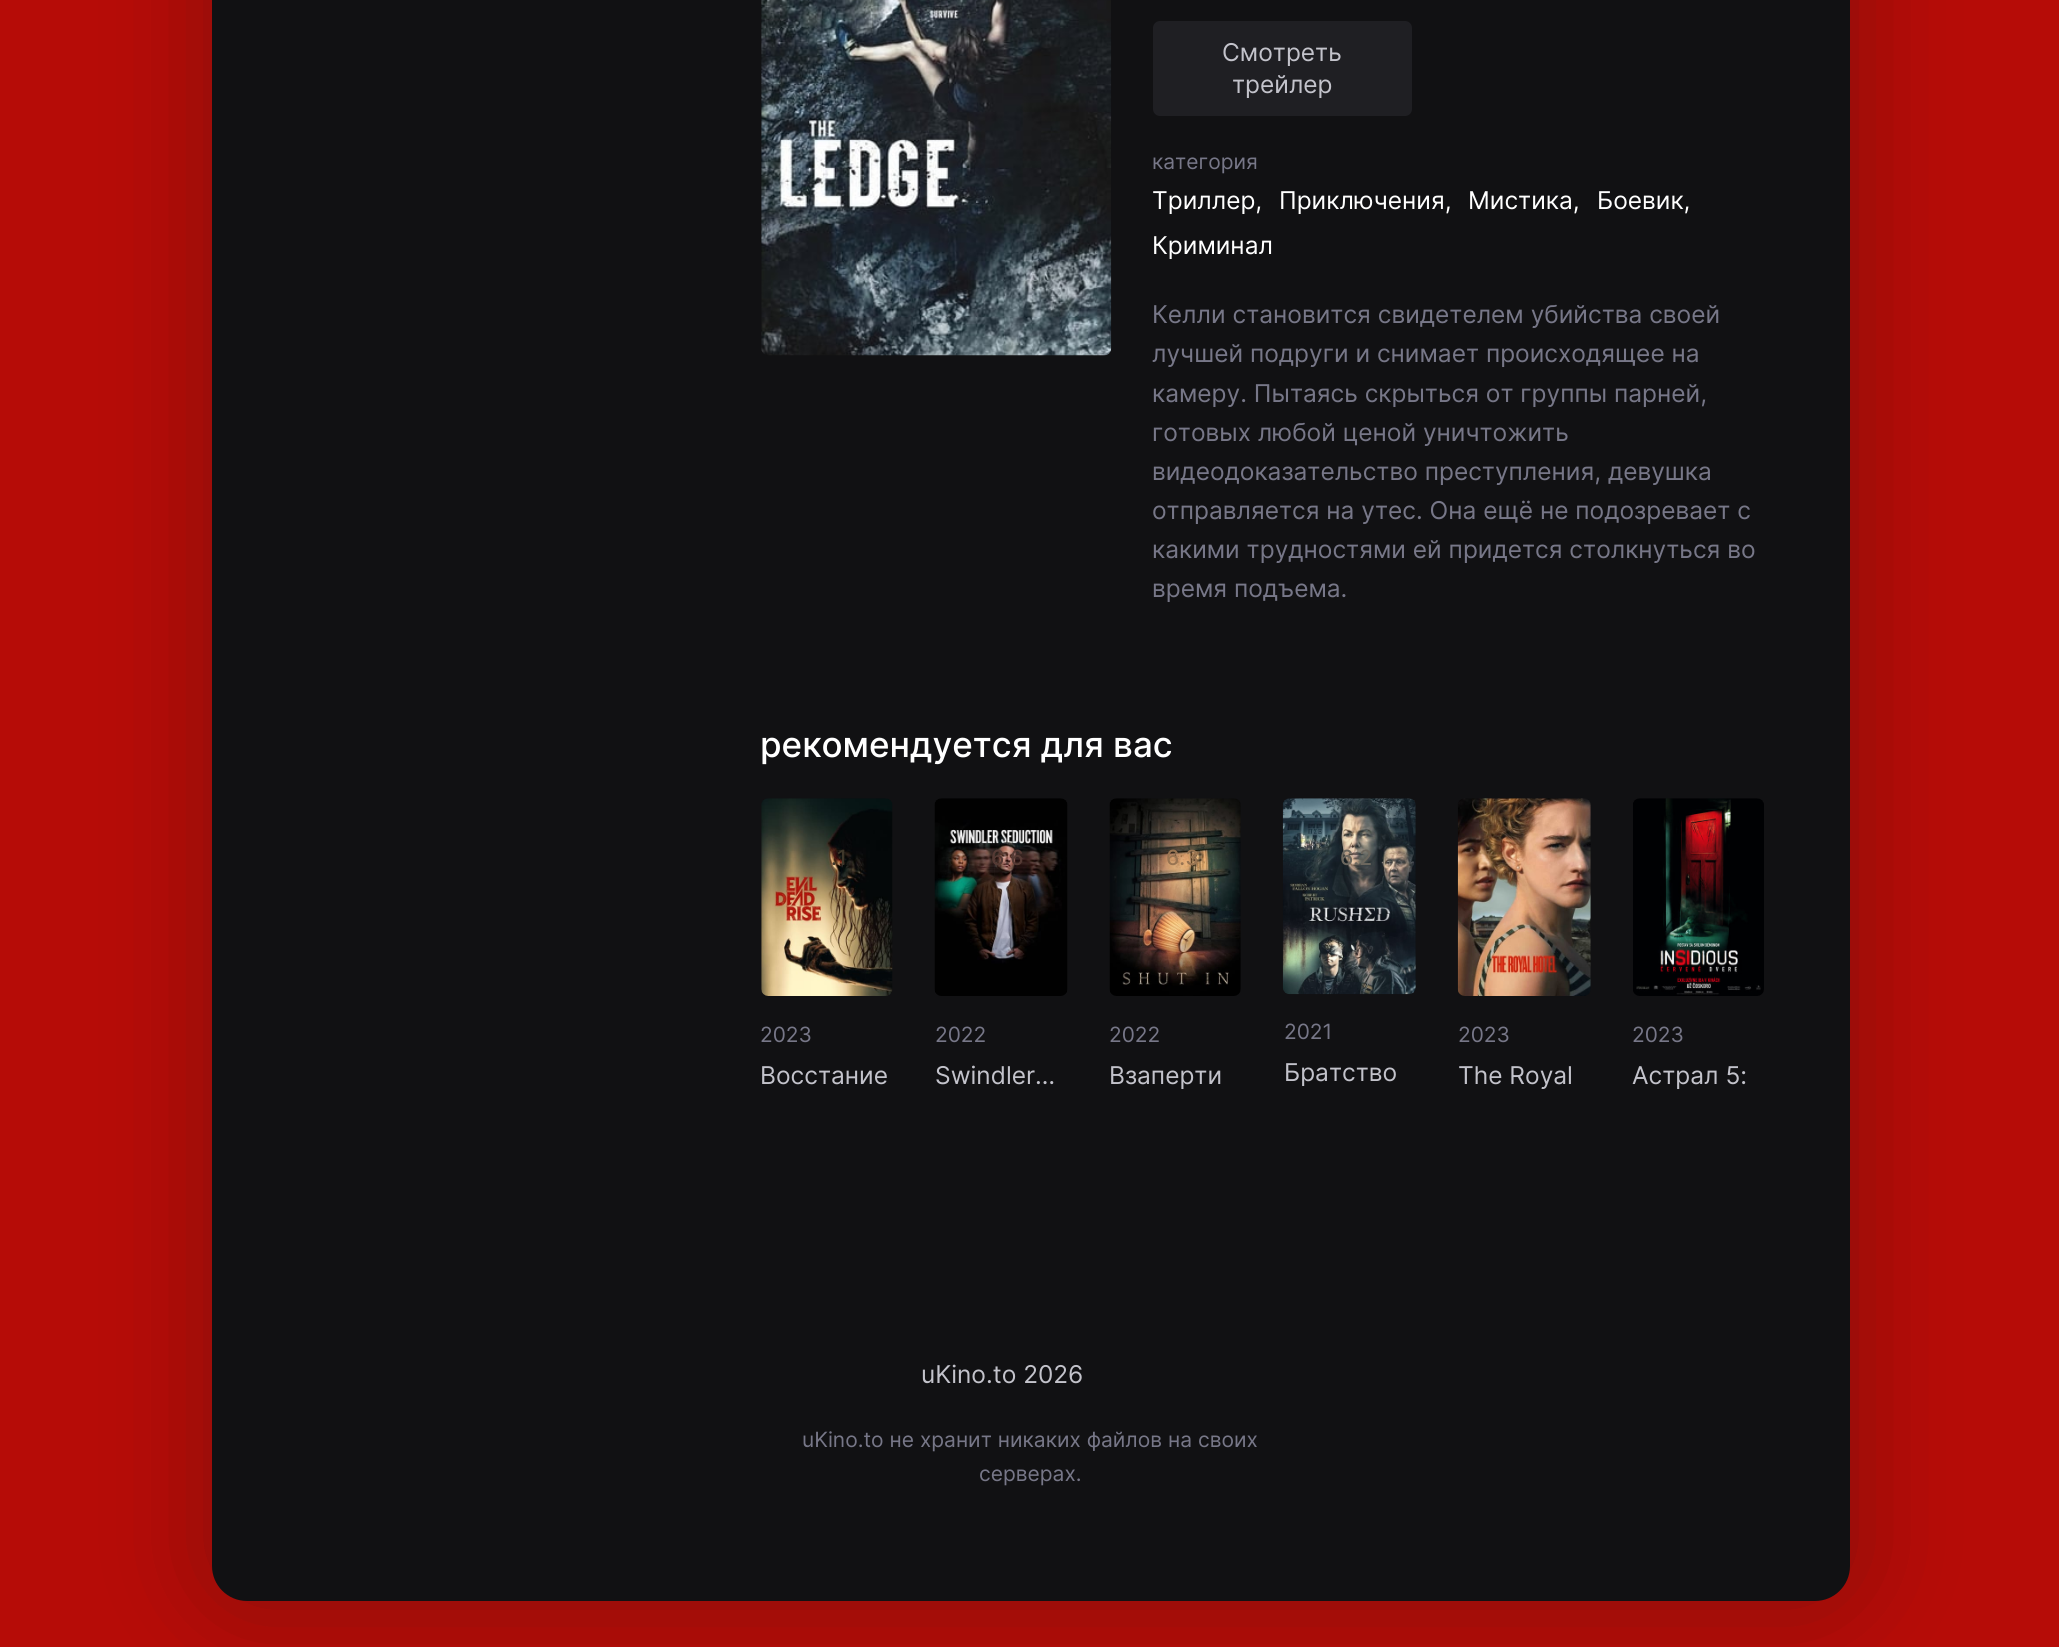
import math
import cairo

surface = cairo.ImageSurface(cairo.FORMAT_RGB24, 2059, 1647)
cr = cairo.Context(surface)
options = cairo.FontOptions()
options.set_hint_metrics(cairo.HINT_METRICS_OFF)
options.set_hint_style(cairo.HINT_STYLE_NONE)
cr.set_font_options(options)
cr.set_miter_limit(4)


def rgb(code):
    cr.set_source_rgb(*(v / 255 for v in bytes.fromhex(code[-6:])))


def rrect(x, y, w, h, r):
    cr.new_sub_path()
    for i, (u, v) in enumerate([(x + w - r, y + h - r), (x + r, y + h - r), (x + r, y + r), (x + w - r, y + r)]):
        cr.arc(u, v, r, i * math.pi / 2, (i + 1) * math.pi / 2)
    cr.close_path()


def soft_shadow(x, y, w, h, r, blur, alpha):
    cr.push_group_with_content(cairo.CONTENT_ALPHA)
    cr.set_operator(cairo.OPERATOR_SOURCE)
    for i in range(15, -16, -2):
        e = blur * i / 6
        if min(w, h) + 2 * e > 0:
            cr.set_source_rgba(0, 0, 0, alpha * math.erfc((i - 1) / 8.5) / 2)
            rrect(x - e, y - e, w + 2 * e, h + 2 * e, max(0, min(r + e + blur * .6, min(w, h) / 2 + e)))
            cr.fill()
    cr.mask(cr.pop_group())


def image(path, x, y, w, h):
    cr.save()
    cr.set_source_surface(cairo.ImageSurface.create_from_png(path), x, y)
    cr.rectangle(x, y, w, h)
    cr.fill()
    cr.restore()


rgb("#b60c07")
cr.paint()
rgb("#111113")
soft_shadow(212, -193, 1638, 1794, 35, 52.5, 0.3)
rgb("#111113")
rrect(212, -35, 1638, 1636, 35)
cr.fill()
image("img/1.png", 761, 0, 351, 356)
rgb("#1f1f23")
rrect(1153, 21, 259, 95, 7)
cr.fill()
image("img/2.png", 761, 798, 132, 198)
image("img/3.png", 934, 798, 134, 198)
image("img/4.png", 1109, 798, 132, 198)
image("img/5.png", 1282, 798, 134, 197)
image("img/6.png", 1457, 798, 134, 198)
image("img/7.png", 1633, 798, 131, 198)
cr.select_font_face("Inter")
cr.set_font_size(24.5)
rgb("#c3c3cb")
cr.move_to(1222, 61)
cr.show_text("Смотреть")
cr.move_to(1232, 93)
cr.show_text("трейлер")
cr.set_font_size(21)
rgb("#777788")
cr.move_to(1152, 169)
cr.show_text("категория")
cr.set_font_size(24.5)
rgb("#ffffff")
for x, y, s in [
    (1152, 209, "Триллер,"),
    (1279, 209, "Приключения,"),
    (1468, 209, "Мистика,"),
    (1597, 209, "Боевик,"),
    (1152, 254, "Криминал"),
]:
    cr.move_to(x, y)
    cr.show_text(s)
rgb("#777788")
for x, y, s in [
    (1152, 323, "Келли становится свидетелем убийства своей"),
    (1152, 362, "лучшей подруги и снимает происходящее на"),
    (1152, 402, "камеру. Пытаясь скрыться от группы парней,"),
    (1152, 441, "готовых любой ценой уничтожить"),
    (1152, 480, "видеодоказательство преступления, девушка"),
    (1152, 519, "отправляется на утес. Она ещё не подозревает с"),
    (1152, 558, "какими трудностями ей придется столкнуться во"),
    (1152, 597, "время подъема."),
]:
    cr.move_to(x, y)
    cr.show_text(s)
cr.select_font_face("Inter Medium")
cr.set_font_size(35)
rgb("#ffffff")
cr.move_to(760, 757)
cr.show_text("рекомендуется для вас")
cr.set_font_size(21)
rgb("#3e372a")
cr.move_to(831, 865)
cr.show_text(".1")
cr.select_font_face("Inter")
rgb("#777788")
cr.move_to(760, 1042)
cr.show_text("2023")
cr.set_font_size(24.5)
rgb("#c3c3cb")
cr.move_to(760, 1084)
cr.show_text("Восстание")
cr.select_font_face("Inter Medium")
cr.set_font_size(21)
rgb("#553a34")
cr.move_to(991, 865)
cr.show_text("6.6")
cr.select_font_face("Inter")
rgb("#777788")
cr.move_to(935, 1042)
cr.show_text("2022")
cr.set_font_size(24.5)
rgb("#c3c3cb")
cr.move_to(935, 1084)
cr.show_text("Swindler…")
cr.select_font_face("Inter Medium")
cr.set_font_size(21)
rgb("#987452")
cr.move_to(1166, 865)
cr.show_text("6.3")
cr.select_font_face("Inter")
rgb("#777788")
cr.move_to(1109, 1042)
cr.show_text("2022")
cr.set_font_size(24.5)
rgb("#c3c3cb")
cr.move_to(1109, 1084)
cr.show_text("Взаперти")
cr.select_font_face("Inter Medium")
cr.set_font_size(21)
rgb("#6c675e")
cr.move_to(1340, 865)
cr.show_text("6.2")
cr.select_font_face("Inter")
rgb("#777788")
cr.move_to(1284, 1039)
cr.show_text("2021")
cr.set_font_size(24.5)
rgb("#c3c3cb")
cr.move_to(1284, 1081)
cr.show_text("Братство")
cr.set_font_size(21)
rgb("#777788")
cr.move_to(1458, 1042)
cr.show_text("2023")
cr.set_font_size(24.5)
rgb("#c3c3cb")
cr.move_to(1458, 1084)
cr.show_text("The Royal")
cr.set_font_size(21)
rgb("#777788")
cr.move_to(1632, 1042)
cr.show_text("2023")
cr.set_font_size(24.5)
rgb("#c3c3cb")
cr.move_to(1632, 1084)
cr.show_text("Астрал 5:")
cr.move_to(921, 1383)
cr.show_text("uKino.to 2026")
cr.set_font_size(21)
rgb("#777788")
cr.move_to(802, 1447)
cr.show_text("uKino.to не хранит никаких файлов на своих")
cr.move_to(979, 1481)
cr.show_text("серверах.")
surface.write_to_png("page.png")
